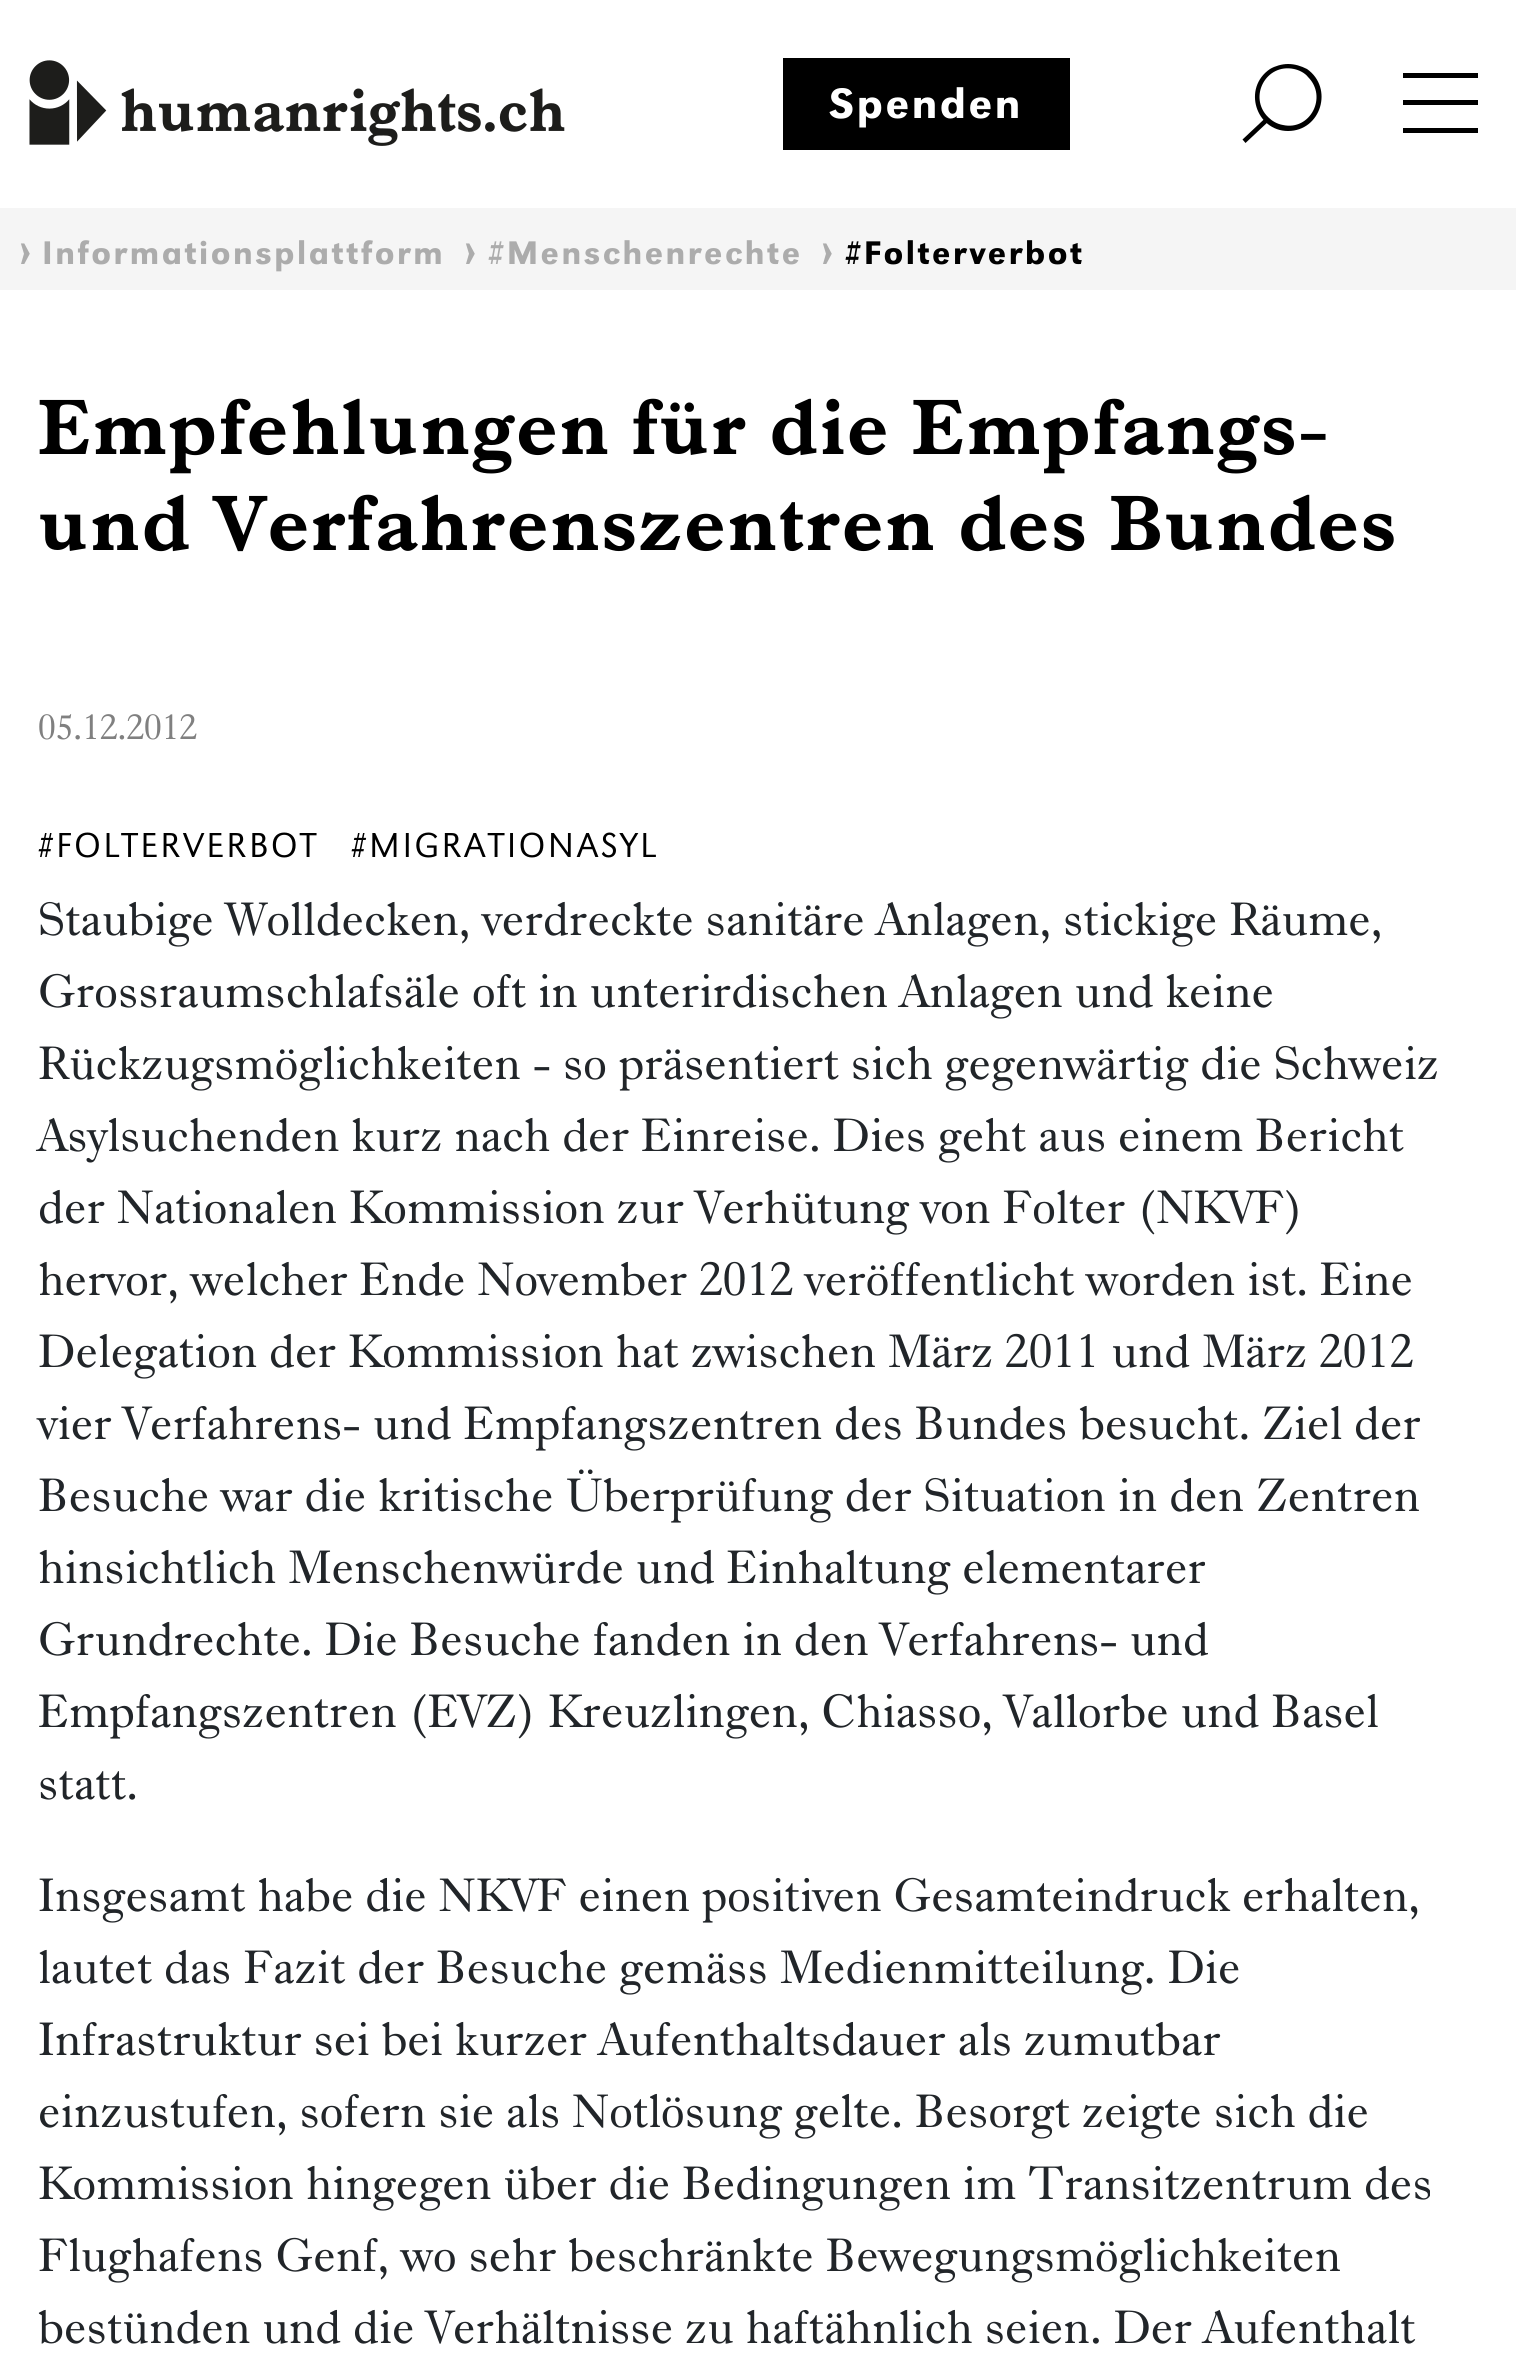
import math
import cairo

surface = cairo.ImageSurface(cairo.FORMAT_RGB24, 1516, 2358)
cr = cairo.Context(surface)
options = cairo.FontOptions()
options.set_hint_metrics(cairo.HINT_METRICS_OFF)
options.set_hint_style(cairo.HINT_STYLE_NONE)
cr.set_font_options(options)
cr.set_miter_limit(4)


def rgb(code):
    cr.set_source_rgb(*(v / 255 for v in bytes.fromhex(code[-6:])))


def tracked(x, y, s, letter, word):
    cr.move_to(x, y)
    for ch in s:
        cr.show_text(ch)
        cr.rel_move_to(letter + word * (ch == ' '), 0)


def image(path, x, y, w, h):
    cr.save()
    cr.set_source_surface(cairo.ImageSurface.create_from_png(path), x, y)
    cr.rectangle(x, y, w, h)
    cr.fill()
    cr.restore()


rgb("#ffffff")
cr.paint()
image("img/1.png", 29, 60, 536, 86)
rgb("#000000")
cr.rectangle(783, 58, 287, 92)
cr.fill()
cr.set_fill_rule(cairo.FILL_RULE_EVEN_ODD)
cr.new_path()
cr.move_to(1242.5, 139.5)
cr.line_to(1267, 116.5)
cr.line_to(1270, 120)
cr.line_to(1245.5, 143)
cr.close_path()
cr.fill()
cr.set_fill_rule(cairo.FILL_RULE_WINDING)
cr.new_path()
cr.move_to(1288, 131)
cr.curve_to(1256, 131, 1242, 88, 1270, 69)
cr.curve_to(1275, 66, 1282, 64, 1288, 64)
cr.curve_to(1295, 64, 1301, 66, 1307, 69)
cr.curve_to(1334, 88, 1321, 131, 1288, 131)
cr.close_path()
cr.move_to(1283, 125)
cr.curve_to(1310, 131, 1328, 97, 1308, 77)
cr.curve_to(1305, 73, 1299, 70, 1294, 69)
cr.curve_to(1266, 63, 1248, 97, 1268, 117)
cr.curve_to(1272, 121, 1277, 124, 1283, 125)
cr.close_path()
cr.fill()
for x, y, w, h, color in [
    (1403, 128, 75, 5, "#000000"),
    (1403, 73, 75, 5, "#000000"),
    (1403, 100, 75, 5, "#000000"),
    (0, 208, 1516, 82, "#f5f5f5"),
]:
    rgb(color)
    cr.rectangle(x, y, w, h)
    cr.fill()
cr.select_font_face("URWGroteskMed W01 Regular")
cr.set_font_size(44)
rgb("#ffffff")
tracked(829, 118, "Spenden", 2.5, 0)
cr.set_font_size(45)
rgb("#acacac")
cr.move_to(19, 264)
cr.show_text("›")
cr.set_font_size(34)
tracked(42, 264, "Informationsplattform", 2.5, 0)
cr.set_font_size(45)
cr.move_to(464, 264)
cr.show_text("›")
cr.set_font_size(34)
tracked(488, 264, "#Menschenrechte", 2.5, 0)
cr.set_font_size(45)
cr.move_to(821, 264)
cr.show_text("›")
cr.set_font_size(34)
rgb("#000000")
tracked(845, 264, "#Folterverbot", 2.5, 0)
cr.select_font_face("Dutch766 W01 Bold", cairo.FONT_SLANT_NORMAL, cairo.FONT_WEIGHT_BOLD)
cr.set_font_size(80)
tracked(38, 454, "Empfehlungen für die Empfangs-", 1.6, 0)
tracked(38, 550, "und Verfahrenszentren des Bundes", 1.6, 0)
cr.select_font_face("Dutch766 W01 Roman")
cr.set_font_size(36)
rgb("#808080")
cr.move_to(38, 739)
cr.show_text("05.12.2012")
cr.select_font_face("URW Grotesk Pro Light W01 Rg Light")
rgb("#000000")
tracked(38, 857, "#FOLTERVERBOT", 2.5, 0)
tracked(351, 857, "#MIGRATIONASYL", 2.5, 0)
cr.select_font_face("Dutch766 W01 Roman")
cr.set_font_size(48)
rgb("#212529")
for x, y, s in [
    (38, 935, "Staubige Wolldecken, verdreckte sanitäre Anlagen, stickige Räume,"),
    (38, 1007, "Grossraumschlafsäle oft in unterirdischen Anlagen und keine"),
    (38, 1079, "Rückzugsmöglichkeiten - so präsentiert sich gegenwärtig die Schweiz"),
    (38, 1151, "Asylsuchenden kurz nach der Einreise. Dies geht aus einem Bericht"),
    (38, 1223, "der Nationalen Kommission zur Verhütung von Folter (NKVF)"),
    (38, 1295, "hervor, welcher Ende November 2012 veröffentlicht worden ist. Eine"),
    (38, 1367, "Delegation der Kommission hat zwischen März 2011 und März 2012"),
    (38, 1439, "vier Verfahrens- und Empfangszentren des Bundes besucht. Ziel der"),
    (38, 1511, "Besuche war die kritische Überprüfung der Situation in den Zentren"),
    (38, 1583, "hinsichtlich Menschenwürde und Einhaltung elementarer"),
    (38, 1655, "Grundrechte. Die Besuche fanden in den Verfahrens- und"),
    (38, 1727, "Empfangszentren (EVZ) Kreuzlingen, Chiasso, Vallorbe und Basel"),
    (38, 1799, "statt."),
    (38, 1911, "Insgesamt habe die NKVF einen positiven Gesamteindruck erhalten,"),
    (38, 1983, "lautet das Fazit der Besuche gemäss Medienmitteilung. Die"),
    (38, 2055, "Infrastruktur sei bei kurzer Aufenthaltsdauer als zumutbar"),
    (38, 2127, "einzustufen, sofern sie als Notlösung gelte. Besorgt zeigte sich die"),
    (38, 2199, "Kommission hingegen über die Bedingungen im Transitzentrum des"),
    (38, 2271, "Flughafens Genf, wo sehr beschränkte Bewegungsmöglichkeiten"),
    (38, 2343, "bestünden und die Verhältnisse zu haftähnlich seien. Der Aufenthalt"),
]:
    cr.move_to(x, y)
    cr.show_text(s)
surface.write_to_png("page.png")
